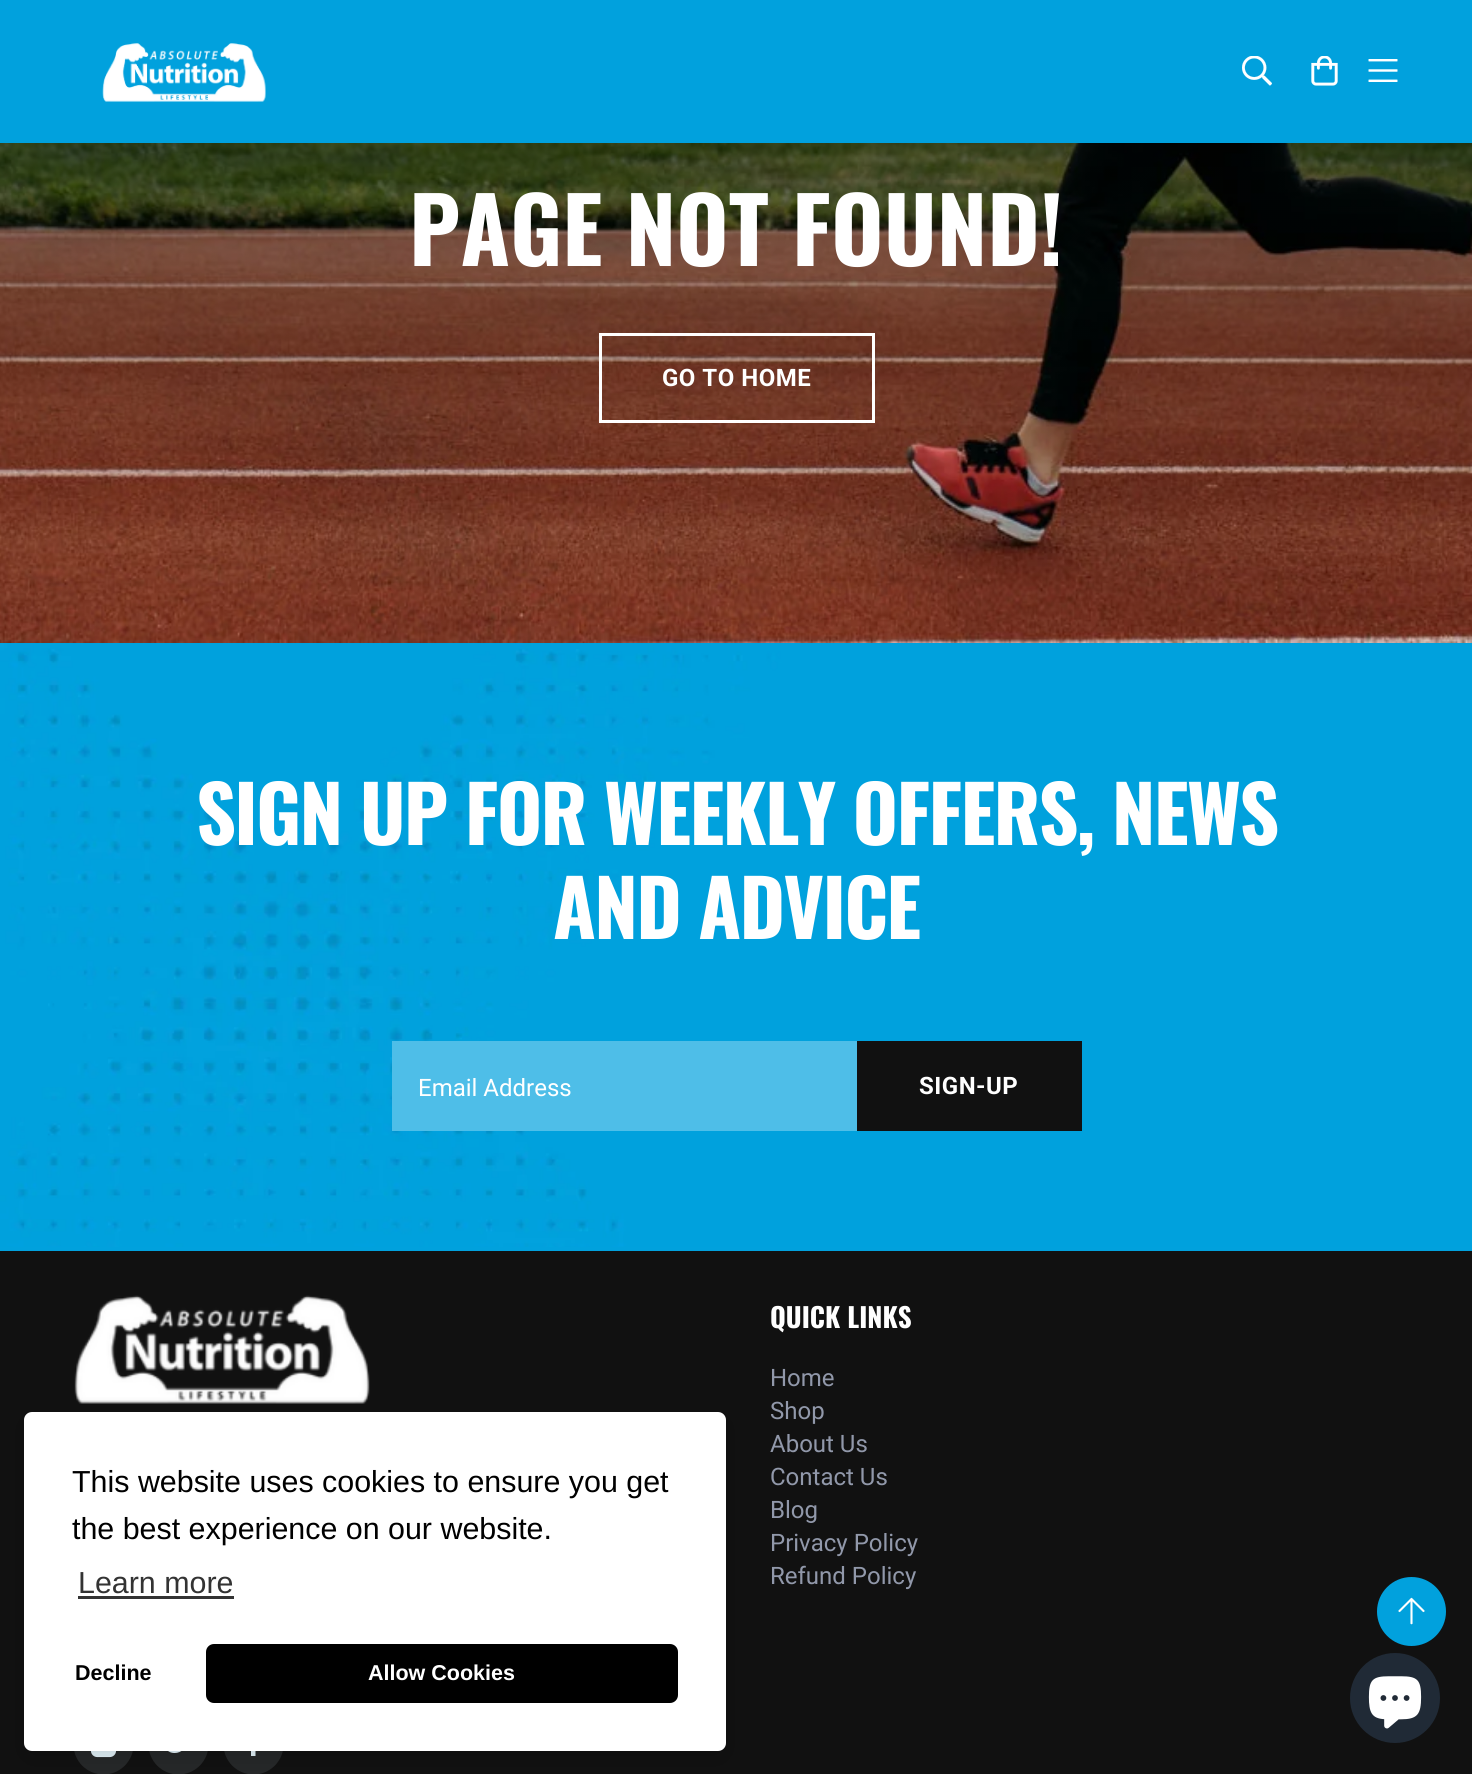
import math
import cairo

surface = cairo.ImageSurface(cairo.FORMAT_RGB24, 1472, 1774)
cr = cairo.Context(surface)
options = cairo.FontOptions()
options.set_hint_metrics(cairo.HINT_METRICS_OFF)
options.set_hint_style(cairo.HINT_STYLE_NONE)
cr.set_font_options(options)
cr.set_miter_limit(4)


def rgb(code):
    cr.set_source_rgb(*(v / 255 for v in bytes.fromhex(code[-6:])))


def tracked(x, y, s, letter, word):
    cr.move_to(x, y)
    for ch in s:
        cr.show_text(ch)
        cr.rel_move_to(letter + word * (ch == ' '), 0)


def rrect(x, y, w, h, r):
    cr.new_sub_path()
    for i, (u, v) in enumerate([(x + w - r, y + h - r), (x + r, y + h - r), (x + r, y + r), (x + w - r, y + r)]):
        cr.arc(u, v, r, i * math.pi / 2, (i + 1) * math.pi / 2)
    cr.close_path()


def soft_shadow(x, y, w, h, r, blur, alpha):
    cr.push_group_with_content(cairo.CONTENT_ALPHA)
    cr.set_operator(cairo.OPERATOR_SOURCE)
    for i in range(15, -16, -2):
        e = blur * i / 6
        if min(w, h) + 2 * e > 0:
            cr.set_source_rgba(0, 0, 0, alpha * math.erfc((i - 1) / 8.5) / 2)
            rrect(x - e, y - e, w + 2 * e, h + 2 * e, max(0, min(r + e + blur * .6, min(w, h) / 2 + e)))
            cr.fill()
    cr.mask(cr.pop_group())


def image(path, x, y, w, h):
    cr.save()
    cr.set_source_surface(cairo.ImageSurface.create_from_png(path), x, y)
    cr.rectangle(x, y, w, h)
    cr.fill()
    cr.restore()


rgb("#111111")
cr.paint()
rgb("#01a1dd")
cr.rectangle(0, 0, 1472, 143)
cr.fill()
image("img/1.png", 102, 43, 164, 59)
image("img/2.png", 1242, 56, 30, 30)
image("img/3.png", 1311, 56, 27, 30)
image("img/4.png", 1368, 59, 30, 23)
image("img/5.png", 0, 143, 1472, 500)
cr.rectangle(600.5, 334.5, 273, 87)
rgb("#ffffff")
cr.set_line_width(3)
cr.stroke()
rgb("#01a1dd")
cr.rectangle(0, 1247, 1472, 4)
cr.fill()
image("img/6.png", 0, 643, 1472, 604)
rgb("#4ebee8")
cr.rectangle(392, 1041, 465, 90)
cr.fill()
rgb("#111111")
cr.rectangle(857, 1041, 225, 90)
cr.fill()
image("img/7.png", 74, 1295, 296, 109)
image("img/8.png", 74, 1751, 59, 23)
image("img/9.png", 149, 1751, 59, 23)
rgb("#262829")
cr.arc(253.5, 1744.5, 30, 0, 2 * math.pi)
cr.fill()
rgb("#e5f5fc")
cr.new_path()
cr.move_to(255.5, 1756)
cr.line_to(255.5, 1745)
cr.line_to(259, 1745)
cr.line_to(259.5, 1740.5)
cr.line_to(255.5, 1740.5)
cr.curve_to(255.5, 1736, 255, 1735.5, 260, 1735.5)
cr.line_to(260, 1732)
cr.curve_to(256, 1731.5, 251.5, 1731.5, 251, 1736.5)
cr.line_to(251, 1740.5)
cr.line_to(247, 1740.5)
cr.line_to(247, 1745)
cr.line_to(251, 1745)
cr.line_to(251, 1756)
cr.close_path()
cr.fill()
rgb("#000000")
soft_shadow(24, 1419, 702, 339, 8, 11, 0.15)
rgb("#ffffff")
rrect(24, 1412, 702, 339, 8)
cr.fill()
rgb("#333333")
cr.rectangle(78, 1596, 156, 3)
cr.fill()
rgb("#000000")
rrect(206, 1644, 472, 59, 8)
cr.fill()
rgb("#01a1dd")
cr.arc(1411.5, 1611.5, 34.5, 0, 2 * math.pi)
cr.fill()
image("img/10.png", 1398, 1597, 27, 28)
rgb("#202a36")
cr.arc(1395, 1698, 45, 0, 2 * math.pi)
cr.fill()
image("img/11.png", 1368, 1676, 54, 53)
cr.select_font_face("Oswald", cairo.FONT_SLANT_NORMAL, cairo.FONT_WEIGHT_BOLD)
cr.set_font_size(90)
rgb("#ffffff")
cr.move_to(409, 266)
cr.show_text("PAGE NOT FOUND!")
cr.select_font_face("roboto", cairo.FONT_SLANT_NORMAL, cairo.FONT_WEIGHT_BOLD)
cr.set_font_size(24)
tracked(662, 386, "GO TO HOME", 0.5, 0)
cr.select_font_face("Oswald", cairo.FONT_SLANT_NORMAL, cairo.FONT_WEIGHT_BOLD)
cr.set_font_size(78)
tracked(196, 845, "SIGN UP FOR WEEKLY OFFERS, NEWS", -1.8, 0)
tracked(553, 939, "AND ADVICE", -1.8, 0)
cr.select_font_face("roboto")
cr.set_font_size(24)
cr.move_to(418, 1096)
cr.show_text("Email Address")
cr.select_font_face("roboto", cairo.FONT_SLANT_NORMAL, cairo.FONT_WEIGHT_BOLD)
tracked(919, 1094, "SIGN-UP", 0.5, 0)
cr.select_font_face("Liberation Sans")
cr.set_font_size(30.4)
rgb("#000000")
cr.move_to(72, 1492)
cr.show_text("This website uses cookies to ensure you get")
cr.move_to(72, 1539)
cr.show_text("the best experience on our website.")
rgb("#333333")
cr.move_to(78, 1593)
cr.show_text("Learn more")
cr.select_font_face("Liberation Sans", cairo.FONT_SLANT_NORMAL, cairo.FONT_WEIGHT_BOLD)
cr.set_font_size(21.5)
rgb("#000000")
cr.move_to(75, 1680)
cr.show_text("Decline")
rgb("#ffffff")
cr.move_to(368, 1680)
cr.show_text("Allow Cookies")
cr.select_font_face("Oswald", cairo.FONT_SLANT_NORMAL, cairo.FONT_WEIGHT_BOLD)
cr.set_font_size(27)
cr.move_to(770, 1328)
cr.show_text("QUICK LINKS")
cr.select_font_face("roboto")
cr.set_font_size(24)
rgb("#9198aa")
for x, y, s in [
    (770, 1386, "Home"),
    (770, 1419, "Shop"),
    (770, 1452, "About Us"),
    (770, 1485, "Contact Us"),
    (770, 1518, "Blog"),
    (770, 1551, "Privacy Policy"),
    (770, 1584, "Refund Policy"),
]:
    cr.move_to(x, y)
    cr.show_text(s)
surface.write_to_png("page.png")
